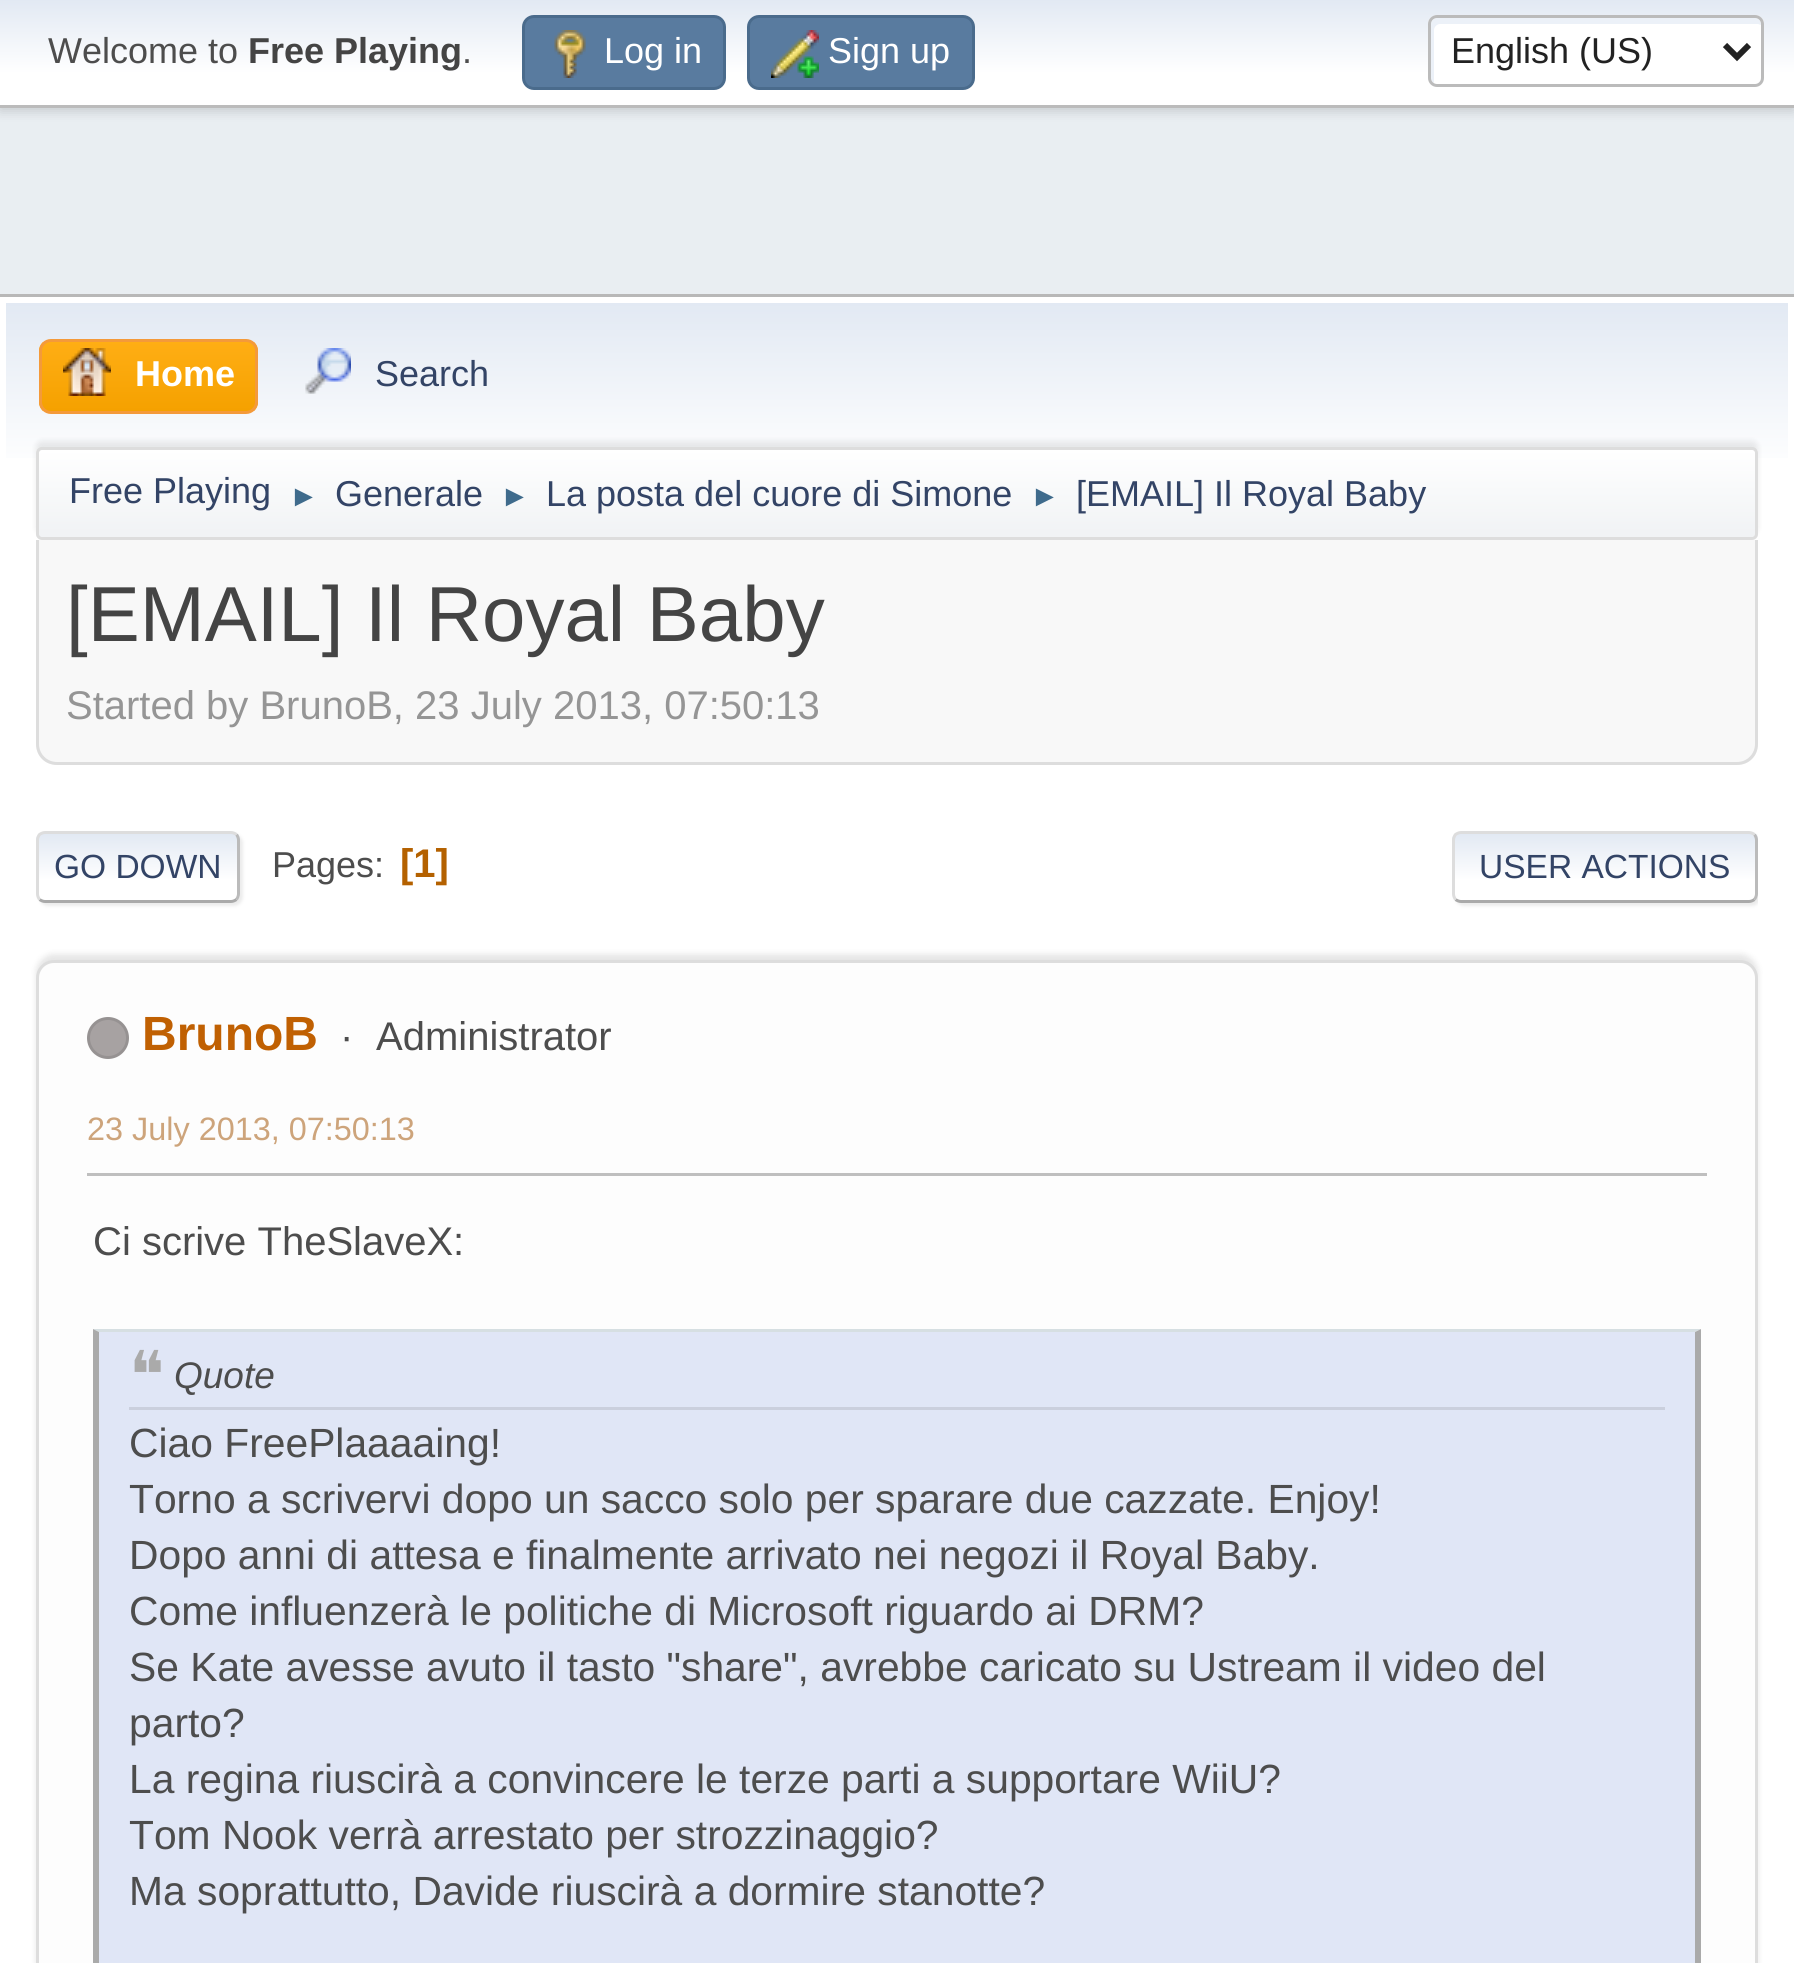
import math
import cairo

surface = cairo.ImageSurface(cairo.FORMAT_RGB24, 1794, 1963)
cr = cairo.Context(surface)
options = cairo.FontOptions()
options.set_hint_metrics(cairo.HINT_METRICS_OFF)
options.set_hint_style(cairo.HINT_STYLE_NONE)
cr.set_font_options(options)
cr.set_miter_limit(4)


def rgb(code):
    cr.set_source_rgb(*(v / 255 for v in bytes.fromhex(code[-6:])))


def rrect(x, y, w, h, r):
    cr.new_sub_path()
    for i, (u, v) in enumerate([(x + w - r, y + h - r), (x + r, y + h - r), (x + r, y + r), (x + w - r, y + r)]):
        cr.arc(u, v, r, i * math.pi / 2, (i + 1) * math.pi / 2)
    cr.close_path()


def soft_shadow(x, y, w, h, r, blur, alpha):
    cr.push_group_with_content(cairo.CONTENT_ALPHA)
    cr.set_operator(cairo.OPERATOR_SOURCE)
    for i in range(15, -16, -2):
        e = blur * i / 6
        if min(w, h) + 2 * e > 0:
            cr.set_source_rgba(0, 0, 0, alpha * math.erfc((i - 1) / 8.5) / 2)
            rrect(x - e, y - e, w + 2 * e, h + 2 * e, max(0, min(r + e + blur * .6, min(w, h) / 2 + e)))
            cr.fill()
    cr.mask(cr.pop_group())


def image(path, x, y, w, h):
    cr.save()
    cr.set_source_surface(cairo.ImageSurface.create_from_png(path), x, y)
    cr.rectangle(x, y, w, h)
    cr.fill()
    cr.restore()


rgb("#e9eef2")
cr.paint()
rgb("#000000")
soft_shadow(0, 3, 1794, 108, 0, 6, 0.16)
gradient = cairo.LinearGradient(897, 0, 897, 105)
gradient.add_color_stop_rgba(0, 0.886, 0.914, 0.953, 1)
gradient.add_color_stop_rgba(0.7, 1, 1, 1, 1)
cr.set_source(gradient)
cr.rectangle(0, 0, 1794, 105)
cr.fill()
rgb("#bbbbbb")
cr.rectangle(0, 105, 1794, 3)
cr.fill()
rgb("#597b9f")
rrect(523.5, 16.5, 201, 72, 10.5)
cr.fill_preserve()
rgb("#4a6b8c")
cr.set_line_width(3)
cr.stroke()
image("img/1.png", 554, 30, 32, 48)
rgb("#597b9f")
rrect(748.5, 16.5, 225, 72, 10.5)
cr.fill_preserve()
rgb("#4a6b8c")
cr.stroke()
image("img/2.png", 771, 30, 48, 48)
rgb("#ffffff")
rrect(1428, 15, 336, 72, 9)
cr.fill()
rgb("#ecf1f8")
cr.new_path()
cr.move_to(1440, 24)
cr.line_to(1758, 24)
cr.line_to(1761, 25)
cr.line_to(1761, 24)
cr.curve_to(1761, 21, 1758, 18, 1755, 18)
cr.line_to(1437, 18)
cr.curve_to(1434, 18, 1431, 21, 1431, 24)
cr.line_to(1431, 78)
cr.curve_to(1431, 80, 1432, 82, 1434, 83)
cr.line_to(1434, 30)
cr.curve_to(1434, 27, 1437, 24, 1440, 24)
cr.close_path()
cr.fill()
rrect(1429.5, 16.5, 333, 69, 7.5)
rgb("#bbbbbb")
cr.stroke()
cr.new_path()
cr.move_to(1725, 45)
cr.line_to(1737, 57)
cr.line_to(1749, 45)
rgb("#222222")
cr.set_line_width(6)
cr.stroke()
rgb("#ffffff")
cr.rectangle(0, 297, 1794, 1666)
cr.fill()
rgb("#b8b8b8")
cr.rectangle(0, 294, 1794, 3)
cr.fill()
gradient = cairo.LinearGradient(897, 303, 897, 546)
gradient.add_color_stop_rgba(0, 0.886, 0.914, 0.953, 1)
gradient.add_color_stop_rgba(0.7, 1, 1, 1, 1)
cr.set_source(gradient)
cr.rectangle(6, 303, 1782, 155)
cr.fill()
cr.save()
rrect(39, 339, 219, 75, 12)
cr.clip()
gradient = cairo.LinearGradient(149, 342, 149, 411)
gradient.add_color_stop_rgba(0, 1, 0.682, 0.078, 1)
gradient.add_color_stop_rgba(1, 0.961, 0.631, 0, 1)
cr.set_source(gradient)
cr.rectangle(39, 342, 219, 69)
cr.fill()
cr.restore()
rrect(40.5, 340.5, 216, 72, 10.5)
rgb("#f49a3a")
cr.set_line_width(3)
cr.stroke()
image("img/3.png", 63, 348, 48, 48)
image("img/4.png", 305, 348, 46, 46)
rgb("#000000")
soft_shadow(36, 441, 1722, 93, 6, 3, 0.08)
cr.save()
rrect(36, 447, 1722, 93, 6)
cr.clip()
gradient = cairo.LinearGradient(897, 450, 897, 537)
gradient.add_color_stop_rgba(0, 1, 1, 1, 1)
gradient.add_color_stop_rgba(0.95, 0.945, 0.953, 0.961, 1)
cr.set_source(gradient)
cr.rectangle(36, 450, 1722, 87)
cr.fill()
cr.restore()
rrect(37.5, 448.5, 1719, 90, 4.5)
rgb("#dddddd")
cr.stroke()
rgb("#f8f8f8")
cr.new_path()
cr.move_to(36, 540)
cr.line_to(1758, 540)
cr.line_to(1758, 744)
cr.curve_to(1758, 755.5, 1748.5, 765, 1737, 765)
cr.line_to(57, 765)
cr.curve_to(45.5, 765, 36, 755.5, 36, 744)
cr.close_path()
cr.fill()
rgb("#dddddd")
cr.set_fill_rule(cairo.FILL_RULE_EVEN_ODD)
cr.new_path()
cr.move_to(36, 540)
cr.line_to(1758, 540)
cr.line_to(1758, 744)
cr.curve_to(1758, 756, 1749, 765, 1737, 765)
cr.line_to(57, 765)
cr.curve_to(45, 765, 36, 756, 36, 744)
cr.close_path()
cr.move_to(39, 540)
cr.line_to(1755, 540)
cr.line_to(1755, 744)
cr.curve_to(1755, 754, 1747, 762, 1737, 762)
cr.line_to(57, 762)
cr.curve_to(47, 762, 39, 754, 39, 744)
cr.close_path()
cr.fill()
rgb("#dddddd")
soft_shadow(39, 834, 204, 72, 9, 1.5, 0.57)
cr.save()
cr.set_fill_rule(cairo.FILL_RULE_WINDING)
rrect(36, 831, 204, 72, 9)
cr.clip()
gradient = cairo.LinearGradient(138, 834, 138, 900)
gradient.add_color_stop_rgba(0, 0.886, 0.914, 0.953, 1)
gradient.add_color_stop_rgba(0.7, 1, 1, 1, 1)
cr.set_source(gradient)
cr.rectangle(36, 834, 204, 66)
cr.fill()
cr.restore()
cr.new_path()
cr.move_to(236.5, 834.5)
cr.curve_to(237.5, 836, 238.5, 838, 238.5, 840)
cr.line_to(238.5, 894)
cr.curve_to(238.5, 896, 237.5, 898, 236.5, 899.5)
rgb("#bbbbbb")
cr.stroke()
cr.new_path()
cr.move_to(236.5, 899.5)
cr.curve_to(235, 900.5, 233, 901.5, 231, 901.5)
cr.line_to(45, 901.5)
cr.curve_to(43, 901.5, 41, 900.5, 39.5, 899.5)
rgb("#aaaaaa")
cr.stroke()
cr.new_path()
cr.move_to(39.5, 899.5)
cr.curve_to(38.5, 898, 37.5, 896, 37.5, 894)
cr.line_to(37.5, 840)
cr.curve_to(37.5, 838, 38.5, 836, 39.5, 834.5)
cr.curve_to(41, 833.5, 43, 832.5, 45, 832.5)
cr.line_to(231, 832.5)
cr.curve_to(233, 832.5, 235, 833.5, 236.5, 834.5)
rgb("#dddddd")
cr.stroke()
cr.save()
cr.set_fill_rule(cairo.FILL_RULE_WINDING)
cr.rectangle(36, 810, 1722, 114)
cr.clip()
rgb("#dddddd")
soft_shadow(1455, 834, 306, 72, 9, 1.5, 0.57)
cr.restore()
cr.save()
cr.set_fill_rule(cairo.FILL_RULE_WINDING)
rrect(1452, 831, 306, 72, 9)
cr.clip()
gradient = cairo.LinearGradient(1605, 834, 1605, 900)
gradient.add_color_stop_rgba(0, 0.886, 0.914, 0.953, 1)
gradient.add_color_stop_rgba(0.7, 1, 1, 1, 1)
cr.set_source(gradient)
cr.rectangle(1452, 834, 306, 66)
cr.fill()
cr.restore()
cr.new_path()
cr.move_to(1754.5, 834.5)
cr.curve_to(1755.5, 836, 1756.5, 838, 1756.5, 840)
cr.line_to(1756.5, 894)
cr.curve_to(1756.5, 896, 1755.5, 898, 1754.5, 899.5)
rgb("#bbbbbb")
cr.stroke()
cr.new_path()
cr.move_to(1754.5, 899.5)
cr.curve_to(1753, 900.5, 1751, 901.5, 1749, 901.5)
cr.line_to(1461, 901.5)
cr.curve_to(1459, 901.5, 1457, 900.5, 1455.5, 899.5)
rgb("#aaaaaa")
cr.stroke()
cr.new_path()
cr.move_to(1455.5, 899.5)
cr.curve_to(1454.5, 898, 1453.5, 896, 1453.5, 894)
cr.line_to(1453.5, 840)
cr.curve_to(1453.5, 838, 1454.5, 836, 1455.5, 834.5)
cr.curve_to(1457, 833.5, 1459, 832.5, 1461, 832.5)
cr.line_to(1749, 832.5)
cr.curve_to(1751, 832.5, 1753, 833.5, 1754.5, 834.5)
rgb("#dddddd")
cr.stroke()
rgb("#000000")
soft_shadow(36, 954, 1722, 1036, 18, 3, 0.1)
rgb("#fdfdfd")
rrect(37.5, 961.5, 1719, 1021, 16.5)
cr.fill_preserve()
rgb("#dddddd")
cr.stroke()
rgb("#a7a2a2")
cr.arc(108, 1038, 19.5, 0, 2 * math.pi)
cr.fill_preserve()
rgb("#969292")
cr.stroke()
rgb("#bfbfbf")
cr.rectangle(87, 1173, 1620, 3)
cr.fill()
rgb("#e0e6f6")
cr.rectangle(99, 1332, 1596, 631)
cr.fill()
rgb("#d6dfe2")
cr.set_fill_rule(cairo.FILL_RULE_WINDING)
cr.new_path()
cr.move_to(93, 1329)
cr.line_to(1701, 1329)
cr.line_to(1695, 1332)
cr.line_to(99, 1332)
cr.close_path()
cr.fill()
rgb("#aaaaaa")
cr.new_path()
cr.move_to(1701, 1329)
cr.line_to(1701, 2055)
cr.line_to(1695, 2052)
cr.line_to(1695, 1332)
cr.close_path()
cr.fill()
cr.new_path()
cr.move_to(93, 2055)
cr.line_to(93, 1329)
cr.line_to(99, 1332)
cr.line_to(99, 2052)
cr.close_path()
cr.fill()
rgb("#cacfdd")
cr.rectangle(129, 1407, 1536, 3)
cr.fill()
cr.select_font_face("Liberation Sans")
cr.set_font_size(36)
rgb("#4d4d4d")
cr.move_to(48, 63)
cr.show_text("Welcome to")
cr.select_font_face("Liberation Sans", cairo.FONT_SLANT_NORMAL, cairo.FONT_WEIGHT_BOLD)
rgb("#444444")
cr.move_to(248, 63)
cr.show_text("Free Playing")
cr.select_font_face("Liberation Sans")
rgb("#4d4d4d")
cr.move_to(462, 63)
cr.show_text(".")
rgb("#ffffff")
cr.move_to(604, 63)
cr.show_text("Log in")
cr.move_to(828, 63)
cr.show_text("Sign up")
rgb("#222222")
cr.move_to(1451, 63)
cr.show_text("English (US)")
cr.select_font_face("Liberation Sans", cairo.FONT_SLANT_NORMAL, cairo.FONT_WEIGHT_BOLD)
rgb("#ffffff")
cr.move_to(135, 386)
cr.show_text("Home")
cr.select_font_face("Liberation Sans")
rgb("#334466")
cr.move_to(375, 386)
cr.show_text("Search")
cr.move_to(69, 503)
cr.show_text("Free Playing")
cr.set_font_size(30)
rgb("#3f6b8c")
cr.move_to(289, 506)
cr.show_text("►")
cr.set_font_size(36)
rgb("#334466")
cr.move_to(335, 506)
cr.show_text("Generale")
cr.set_font_size(30)
rgb("#3f6b8c")
cr.move_to(500, 506)
cr.show_text("►")
cr.set_font_size(36)
rgb("#334466")
cr.move_to(546, 506)
cr.show_text("La posta del cuore di Simone")
cr.set_font_size(30)
rgb("#3f6b8c")
cr.move_to(1030, 506)
cr.show_text("►")
cr.set_font_size(36)
rgb("#334466")
cr.move_to(1076, 506)
cr.show_text("[EMAIL] Il Royal Baby")
cr.set_font_size(78)
rgb("#444444")
cr.move_to(66, 641)
cr.show_text("[EMAIL] Il Royal Baby")
cr.set_font_size(40)
rgb("#959595")
cr.move_to(66, 719)
cr.show_text("Started by BrunoB, 23 July 2013, 07:50:13")
cr.set_font_size(33.5)
rgb("#334466")
cr.move_to(54, 878)
cr.show_text("GO DOWN")
cr.set_font_size(36)
rgb("#4d4d4d")
cr.move_to(272, 877)
cr.show_text("Pages:")
cr.select_font_face("Liberation Sans", cairo.FONT_SLANT_NORMAL, cairo.FONT_WEIGHT_BOLD)
cr.set_font_size(40)
rgb("#b46100")
cr.move_to(400, 877)
cr.show_text("[1]")
cr.select_font_face("Liberation Sans")
cr.set_font_size(33.5)
rgb("#334466")
cr.move_to(1479, 878)
cr.show_text("USER ACTIONS")
cr.select_font_face("Liberation Sans", cairo.FONT_SLANT_NORMAL, cairo.FONT_WEIGHT_BOLD)
cr.set_font_size(48)
rgb("#c06002")
cr.move_to(142, 1050)
cr.show_text("BrunoB")
cr.select_font_face("Liberation Sans")
cr.set_font_size(40)
rgb("#4d4d4d")
cr.move_to(340, 1050)
cr.show_text("·")
cr.move_to(376, 1050)
cr.show_text("Administrator")
cr.set_font_size(32.4)
rgb("#cda47b")
cr.move_to(87, 1140)
cr.show_text("23 July 2013, 07:50:13")
cr.set_font_size(40)
rgb("#4d4d4d")
cr.move_to(93, 1255)
cr.show_text("Ci scrive TheSlaveX:")
cr.select_font_face("DejaVu Sans")
cr.set_font_size(66)
rgb("#aaaaaa")
cr.move_to(129, 1398)
cr.show_text("❝")
cr.select_font_face("Liberation Sans", cairo.FONT_SLANT_ITALIC)
cr.set_font_size(37)
rgb("#4d4d4d")
cr.move_to(174, 1388)
cr.show_text("Quote")
cr.select_font_face("Liberation Sans")
cr.set_font_size(40.8)
for x, y, s in [
    (129, 1457, "Ciao FreePlaaaaing!"),
    (129, 1513, "Torno a scrivervi dopo un sacco solo per sparare due cazzate. Enjoy!"),
    (129, 1569, "Dopo anni di attesa e finalmente arrivato nei negozi il Royal Baby."),
    (129, 1625, "Come influenzerà le politiche di Microsoft riguardo ai DRM?"),
    (129, 1681, "Se Kate avesse avuto il tasto \"share\", avrebbe caricato su Ustream il video del"),
    (129, 1737, "parto?"),
    (129, 1793, "La regina riuscirà a convincere le terze parti a supportare WiiU?"),
    (129, 1849, "Tom Nook verrà arrestato per strozzinaggio?"),
    (129, 1905, "Ma soprattutto, Davide riuscirà a dormire stanotte?"),
]:
    cr.move_to(x, y)
    cr.show_text(s)
surface.write_to_png("page.png")
